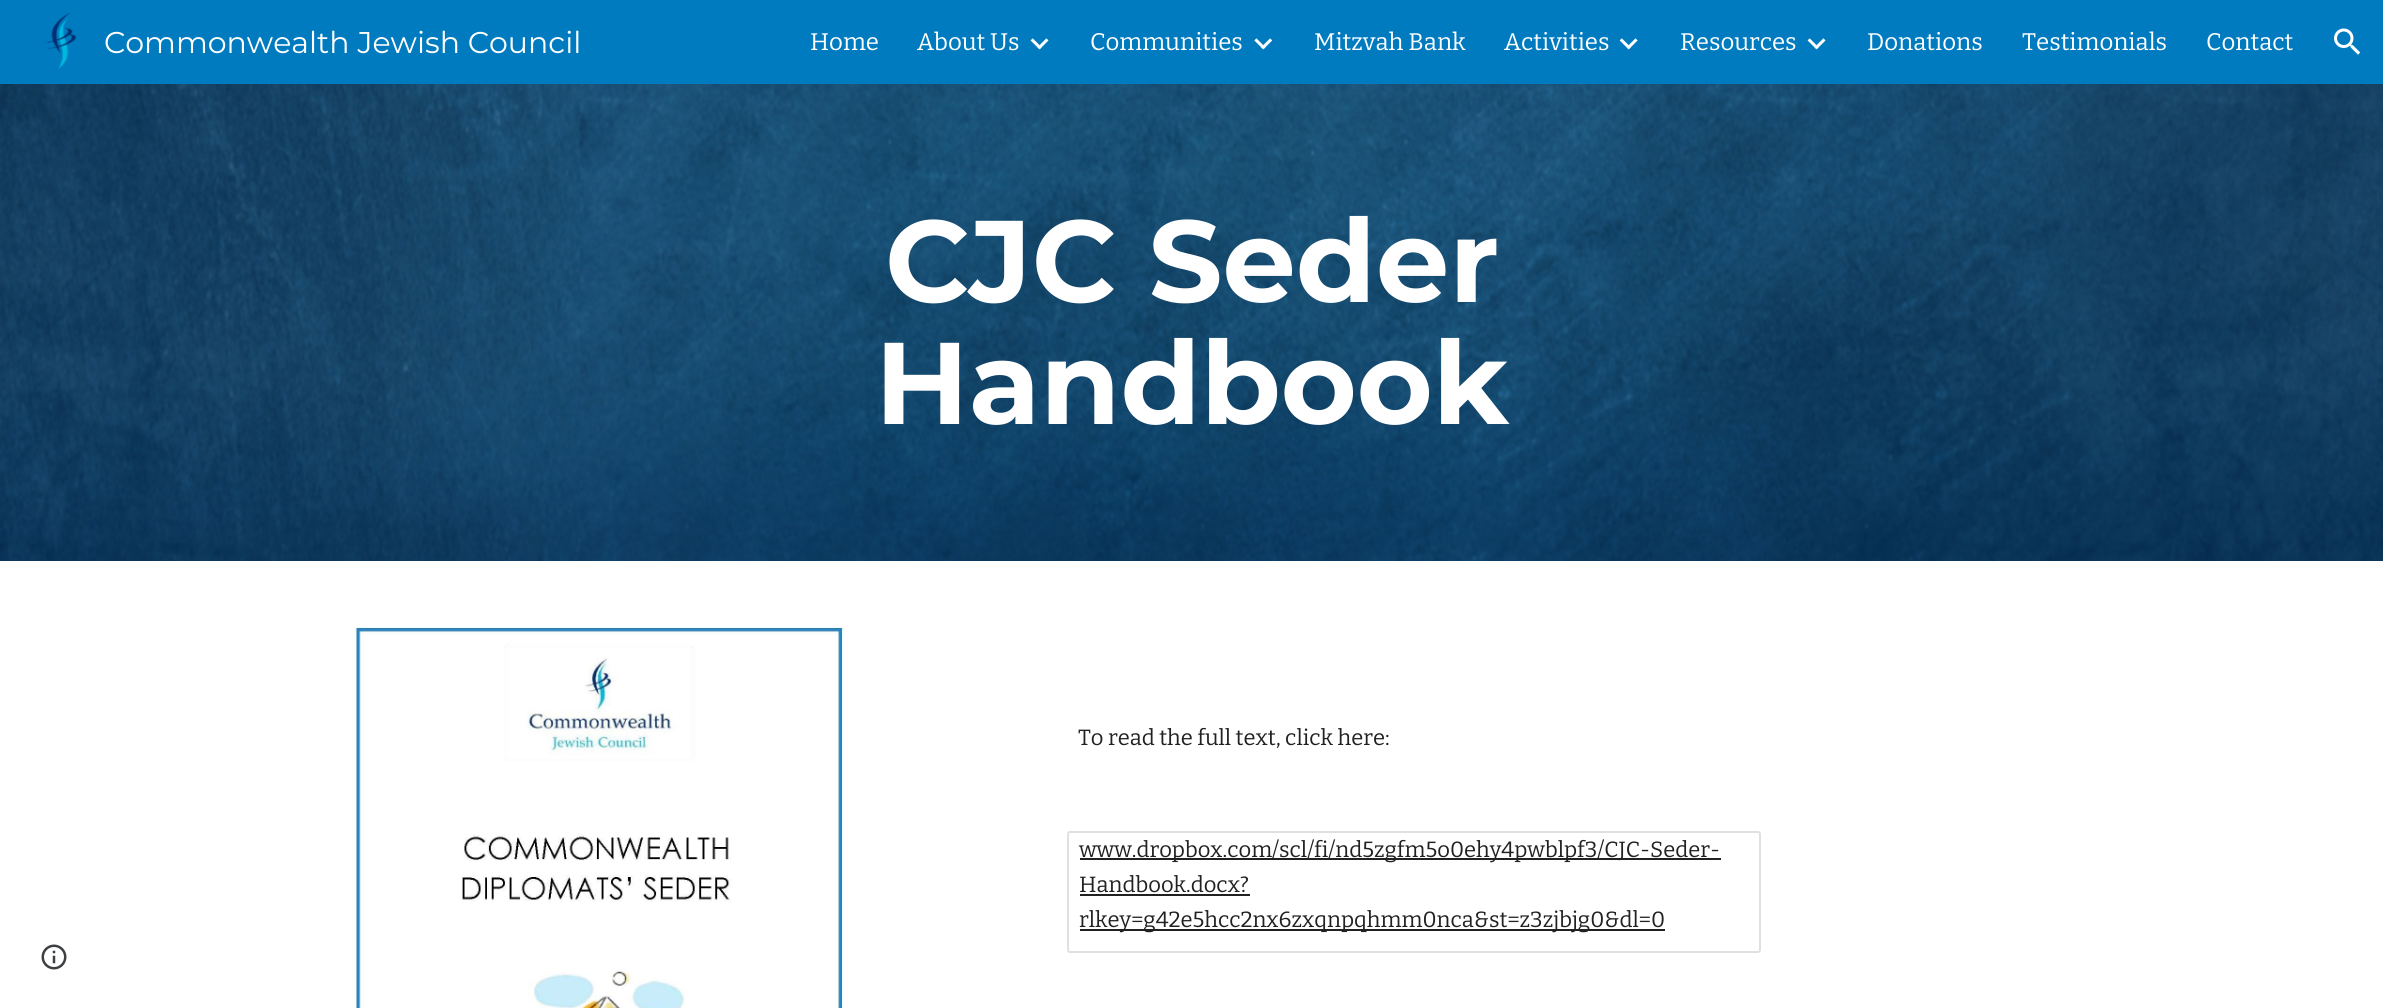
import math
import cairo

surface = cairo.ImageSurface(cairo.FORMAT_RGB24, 2383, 1008)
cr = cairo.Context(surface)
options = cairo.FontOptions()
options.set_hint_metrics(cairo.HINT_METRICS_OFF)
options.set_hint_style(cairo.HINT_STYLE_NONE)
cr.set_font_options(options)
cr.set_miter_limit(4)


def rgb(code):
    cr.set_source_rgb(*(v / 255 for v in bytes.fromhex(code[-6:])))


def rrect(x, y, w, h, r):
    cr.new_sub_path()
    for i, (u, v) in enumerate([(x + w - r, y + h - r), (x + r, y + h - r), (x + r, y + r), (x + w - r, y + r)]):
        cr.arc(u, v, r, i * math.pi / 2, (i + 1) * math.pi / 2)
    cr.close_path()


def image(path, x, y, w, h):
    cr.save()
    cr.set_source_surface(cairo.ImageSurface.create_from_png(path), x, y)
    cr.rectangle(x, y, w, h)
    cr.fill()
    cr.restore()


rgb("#ffffff")
cr.paint()
rgb("#007bbf")
cr.rectangle(0, 0, 2383, 84)
cr.fill()
image("img/1.png", 43, 12, 34, 57)
image("img/2.png", 1030, 38, 19, 12)
image("img/3.png", 1254, 38, 19, 12)
image("img/4.png", 1619, 38, 19, 12)
image("img/5.png", 1807, 38, 19, 12)
image("img/6.png", 2334, 28, 27, 27)
image("img/7.png", 0, 84, 2383, 477)
image("img/8.png", 355, 627, 489, 381)
rrect(1068, 832, 692, 120, 2)
rgb("#e0e0e0")
cr.stroke()
for x, y, w, h, color in [
    (1080, 858, 641, 2, "#212121"),
    (1080, 894, 170, 2, "#212121"),
    (1080, 929, 585, 2, "#212121"),
]:
    rgb(color)
    cr.rectangle(x, y, w, h)
    cr.fill()
image("img/9.png", 41, 944, 26, 26)
cr.select_font_face("Montserrat")
cr.set_font_size(30)
rgb("#ffffff")
cr.move_to(104, 53)
cr.show_text("Commonwealth Jewish Council")
cr.select_font_face("Bitter")
cr.set_font_size(24)
for x, y, s in [
    (810, 50, "Home"),
    (917, 50, "About Us"),
    (1090, 50, "Communities"),
    (1314, 50, "Mitzvah Bank"),
    (1504, 50, "Activities"),
    (1680, 50, "Resources"),
    (1867, 50, "Donations"),
    (2022, 50, "Testimonials"),
    (2206, 50, "Contact"),
]:
    cr.move_to(x, y)
    cr.show_text(s)
cr.select_font_face("Montserrat", cairo.FONT_SLANT_NORMAL, cairo.FONT_WEIGHT_BOLD)
cr.set_font_size(116)
cr.move_to(885, 302)
cr.show_text("CJC Seder")
cr.move_to(875, 424)
cr.show_text("Handbook")
cr.select_font_face("Bitter")
cr.set_font_size(22)
rgb("#212121")
for x, y, s in [
    (1078, 745, "To read the full text, click here:"),
    (1079, 857, "www.dropbox.com/scl/fi/nd5zgfm5o0ehy4pwblpf3/CJC-Seder-"),
    (1079, 892, "Handbook.docx?"),
    (1079, 927, "rlkey=g42e5hcc2nx6zxqnpqhmm0nca&st=z3zjbjg0&dl=0"),
]:
    cr.move_to(x, y)
    cr.show_text(s)
surface.write_to_png("page.png")
